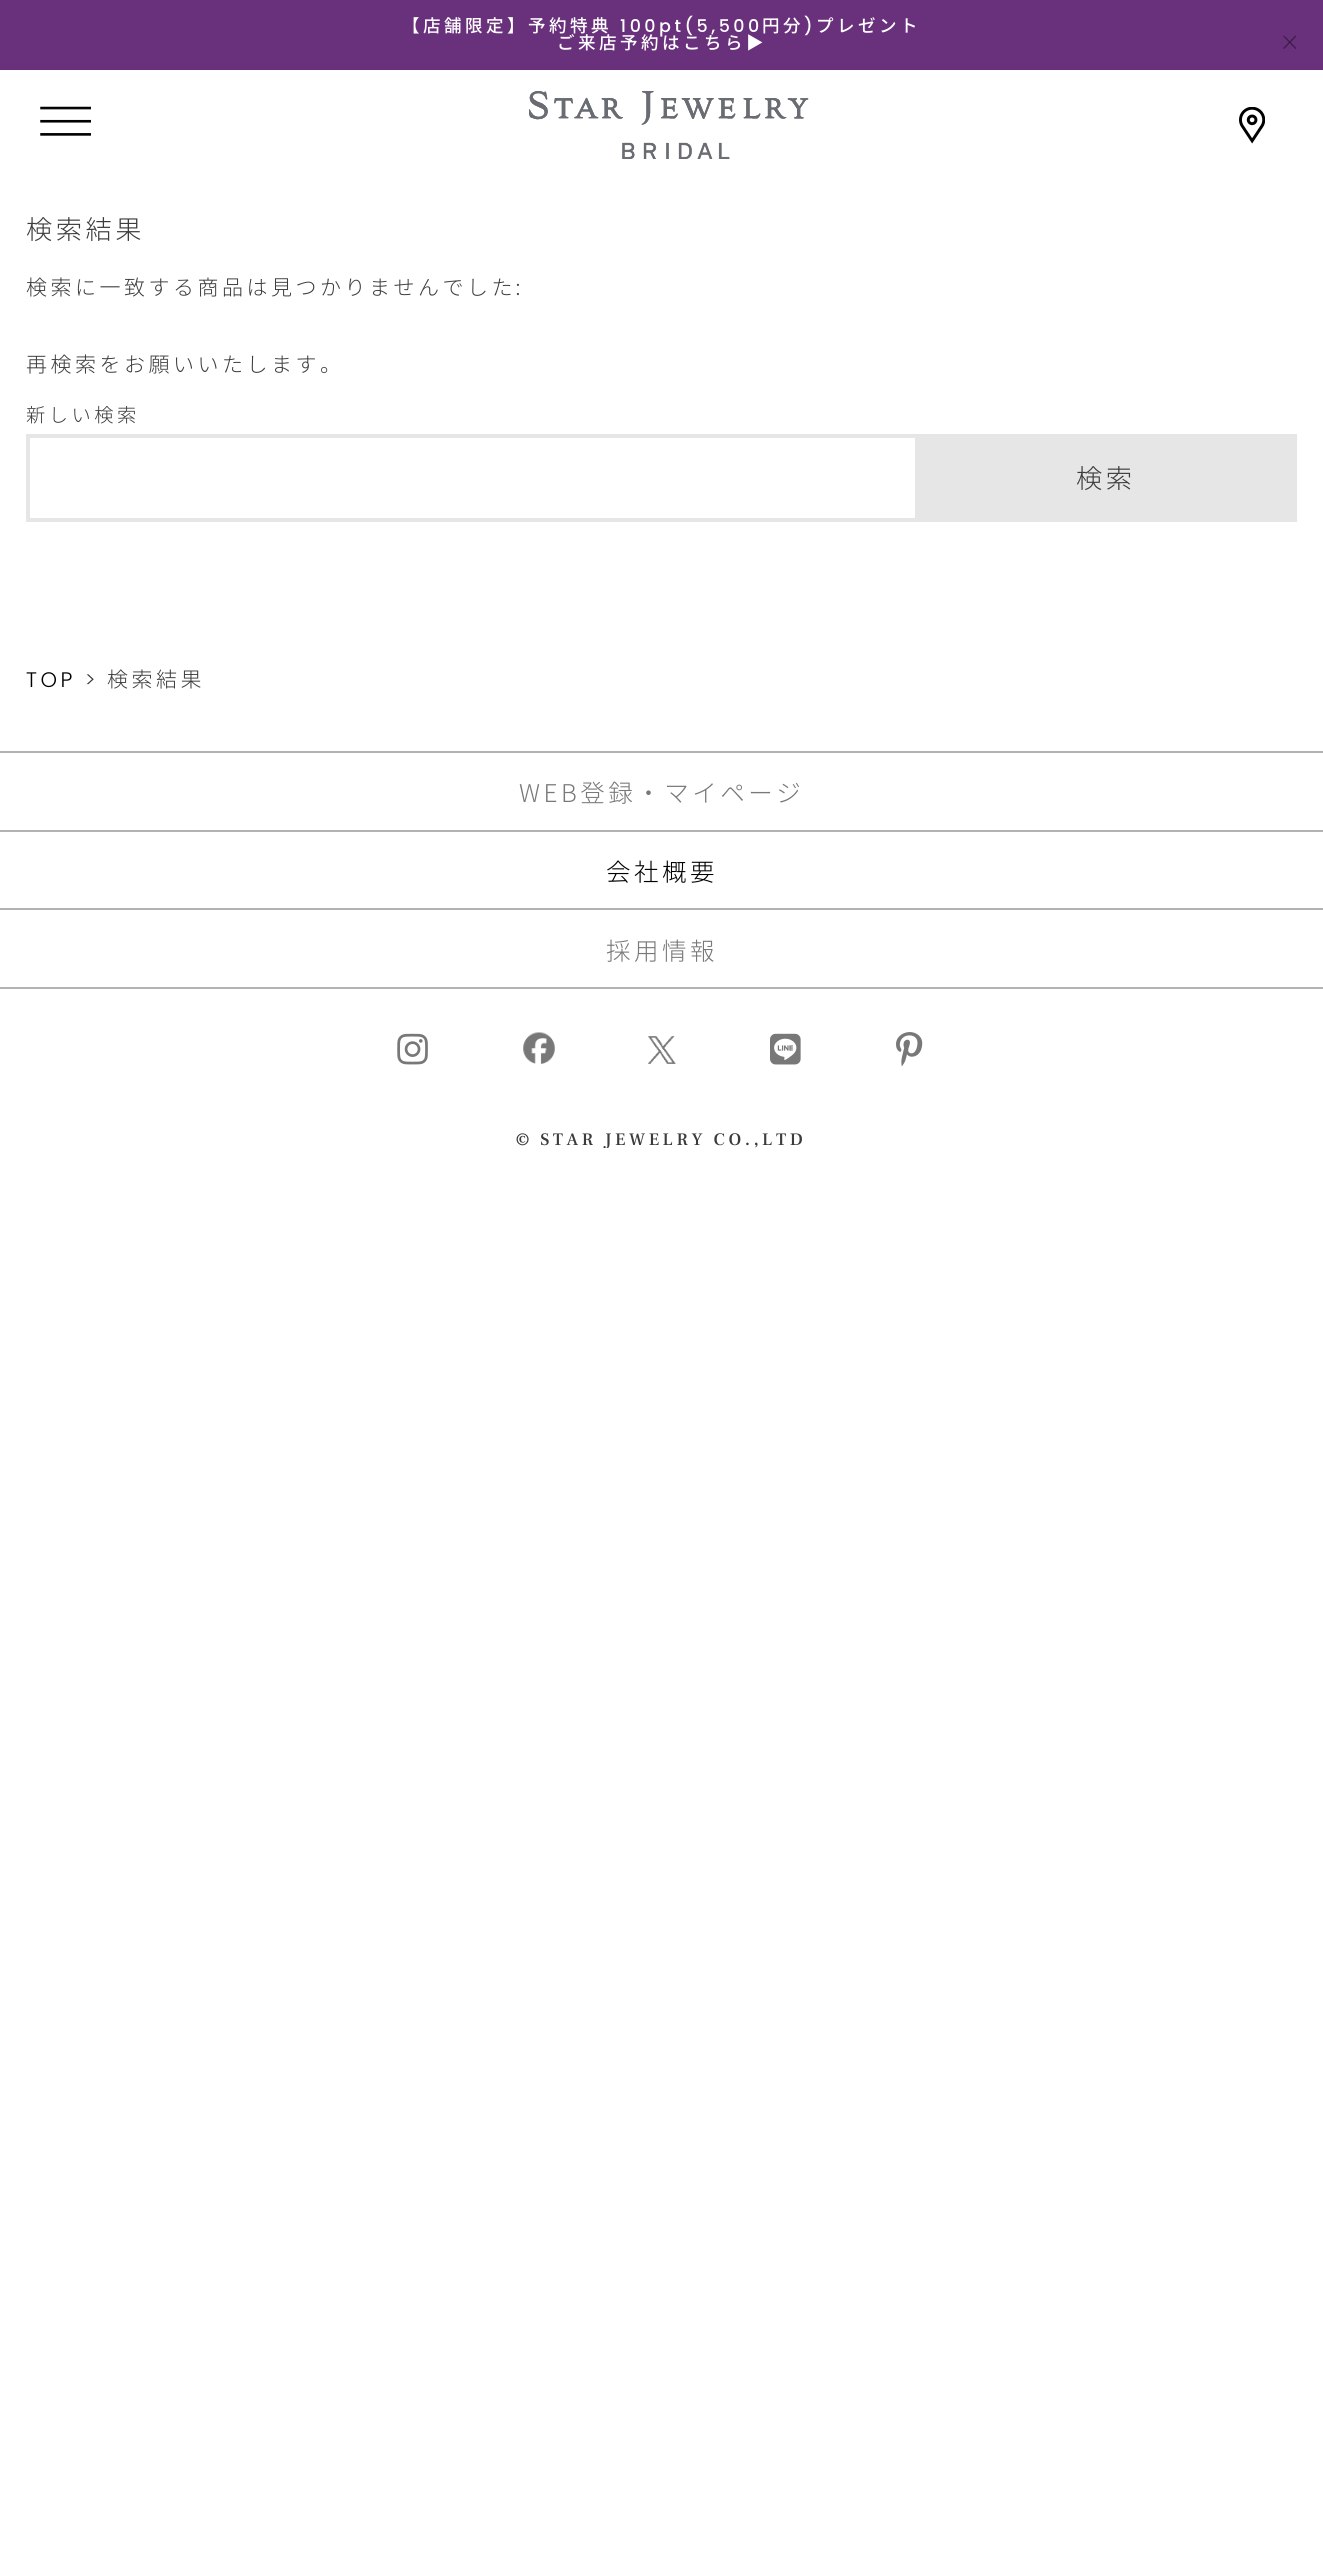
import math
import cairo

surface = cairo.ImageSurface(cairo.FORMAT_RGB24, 1323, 2551)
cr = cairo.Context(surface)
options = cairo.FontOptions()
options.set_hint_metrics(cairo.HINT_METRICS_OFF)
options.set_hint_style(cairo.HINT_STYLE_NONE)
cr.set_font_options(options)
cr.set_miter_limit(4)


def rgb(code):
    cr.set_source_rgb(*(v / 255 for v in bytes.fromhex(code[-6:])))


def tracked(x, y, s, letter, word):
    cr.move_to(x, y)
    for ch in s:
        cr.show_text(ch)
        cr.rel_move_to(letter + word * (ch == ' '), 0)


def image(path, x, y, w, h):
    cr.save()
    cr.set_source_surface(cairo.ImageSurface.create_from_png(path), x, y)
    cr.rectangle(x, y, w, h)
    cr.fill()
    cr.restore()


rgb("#ffffff")
cr.paint()
rgb("#69307c")
cr.rectangle(0, 0, 1323, 70)
cr.fill()
image("img/1.png", 1283, 35, 14, 14)
image("img/2.png", 40, 106, 51, 30)
image("img/3.png", 529, 91, 280, 68)
image("img/4.png", 1239, 107, 26, 37)
cr.rectangle(28, 436, 1267, 84)
rgb("#e6e6e6")
cr.set_line_width(4)
cr.stroke()
for x, y, w, h, color in [
    (915, 438, 378, 80, "#e6e6e6"),
    (0, 751, 1323, 2, "#b2b2b2"),
    (0, 830, 1323, 2, "#b2b2b2"),
    (0, 908, 1323, 2, "#b2b2b2"),
    (0, 987, 1323, 2, "#b2b2b2"),
]:
    rgb(color)
    cr.rectangle(x, y, w, h)
    cr.fill()
image("img/5.png", 397, 1033, 31, 32)
image("img/6.png", 523, 1032, 32, 32)
image("img/7.png", 647, 1036, 29, 28)
image("img/8.png", 770, 1033, 31, 32)
image("img/9.png", 896, 1032, 27, 35)
cr.select_font_face("Noto Sans JP Medium")
cr.set_font_size(17.5)
rgb("#ffffff")
tracked(402, 32, "【店舗限定】予約特典", 3.5, 0)
cr.select_font_face("Poppins Medium")
tracked(620, 32, "100pt(5,500", 3.5, 0)
cr.select_font_face("Noto Sans JP Medium")
tracked(762, 32, "円分", 3.5, 0)
cr.select_font_face("Poppins Medium")
tracked(804, 32, ")", 3.5, 0)
cr.select_font_face("Noto Sans JP Medium")
tracked(816, 32, "プレゼント", 3.5, 0)
tracked(557, 49, "ご来店予約はこちら▶", 3.5, 0)
cr.select_font_face("Noto Sans JP Light")
cr.set_font_size(26.25)
rgb("#3c3c3c")
tracked(26, 239, "検索結果", 3.5, 0)
cr.set_font_size(21)
tracked(26, 295, "検索に一致する商品は見つかりませんでした", 3.5, 0)
cr.select_font_face("Poppins Light")
tracked(516, 295, ":", 3.5, 0)
cr.select_font_face("Noto Sans JP Light")
tracked(26, 372, "再検索をお願いいたします。", 3.5, 0)
cr.set_font_size(19.25)
tracked(26, 422, "新しい検索", 3.5, 0)
cr.set_font_size(26.25)
tracked(1076, 488, "検索", 3.5, 0)
cr.select_font_face("Poppins Light")
cr.set_font_size(21)
rgb("#000000")
tracked(26, 687, "TOP", 3.5, 0)
rgb("#3c3c3c")
tracked(85, 687, ">", 3.5, 0)
cr.select_font_face("Noto Sans JP Light")
tracked(107, 687, "検索結果", 3.5, 0)
cr.set_font_size(24.5)
rgb("#787878")
tracked(519, 802, "WEB登録・マイページ", 3.5, 0)
rgb("#000000")
tracked(606, 881, "会社概要", 3.5, 0)
rgb("#787878")
tracked(606, 960, "採用情報", 3.5, 0)
cr.save()
cr.rectangle(0, 0, 1323, 1148)
cr.clip()
cr.select_font_face("Frank Ruhl Libre Medium")
cr.set_font_size(17.5)
rgb("#3c3c3c")
tracked(516, 1145, "© STAR JEWELRY CO.,LTD", 3.5, 0)
cr.restore()
surface.write_to_png("page.png")
